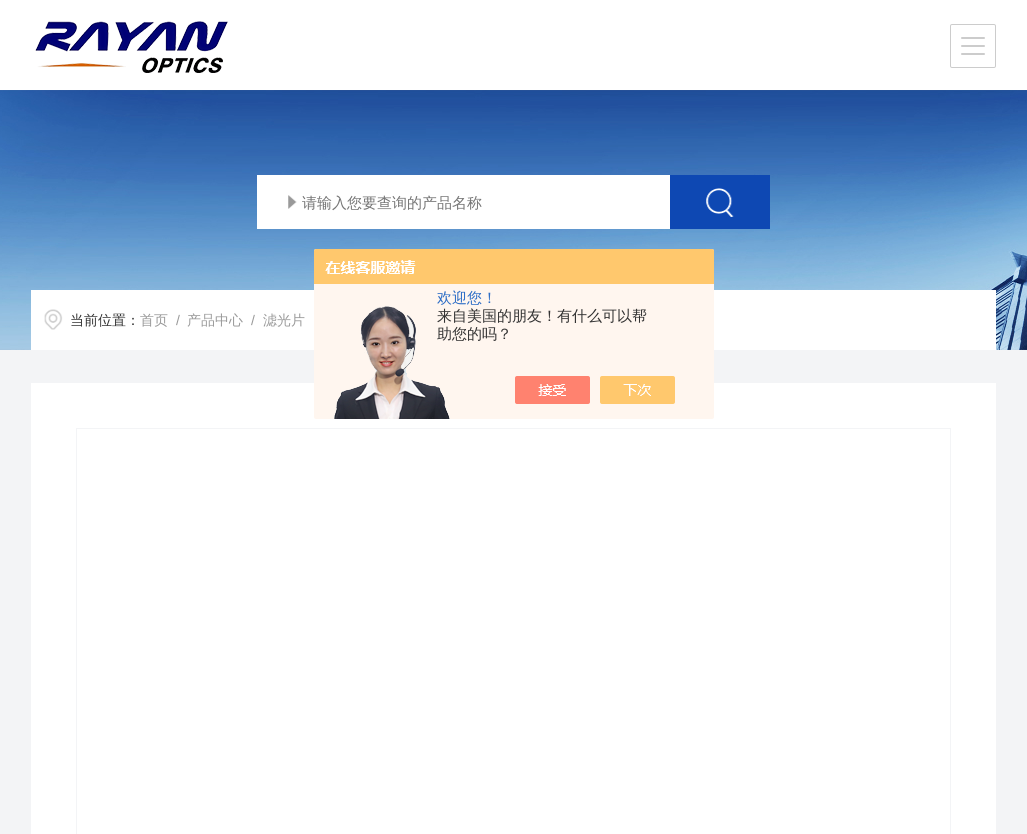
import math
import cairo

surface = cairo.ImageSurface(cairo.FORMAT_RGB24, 1027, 834)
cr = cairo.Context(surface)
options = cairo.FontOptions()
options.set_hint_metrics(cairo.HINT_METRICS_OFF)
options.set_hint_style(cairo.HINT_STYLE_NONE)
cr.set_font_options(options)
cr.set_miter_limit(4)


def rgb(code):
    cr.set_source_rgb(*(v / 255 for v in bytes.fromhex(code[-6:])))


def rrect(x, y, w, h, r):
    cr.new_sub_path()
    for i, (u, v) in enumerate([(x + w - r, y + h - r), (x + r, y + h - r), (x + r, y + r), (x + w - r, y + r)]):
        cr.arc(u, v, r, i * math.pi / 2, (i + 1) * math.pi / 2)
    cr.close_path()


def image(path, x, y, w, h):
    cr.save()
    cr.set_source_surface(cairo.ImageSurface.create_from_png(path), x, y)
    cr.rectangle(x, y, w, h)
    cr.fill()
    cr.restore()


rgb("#ffffff")
cr.paint()
image("img/1.png", 35, 21, 193, 52)
rrect(950.5, 24.5, 45, 43, 1.5)
rgb("#cccccc")
cr.set_line_width(1)
cr.stroke()
rrect(961, 37, 24, 2, 1)
cr.fill()
rrect(961, 45, 24, 2, 1)
cr.fill()
rrect(961, 53, 24, 2, 1)
cr.fill()
image("img/2.png", 0, 90, 1027, 260)
rgb("#ffffff")
cr.rectangle(257, 175, 413, 54)
cr.fill()
image("img/3.png", 288, 195, 9, 14)
rgb("#0e48b3")
cr.rectangle(670, 175, 100, 54)
cr.fill()
image("img/4.png", 706, 188, 28, 29)
rgb("#ffffff")
cr.rectangle(31, 290, 965, 60)
cr.fill()
image("img/5.png", 44, 309, 19, 21)
rgb("#f3f4f6")
cr.rectangle(0, 350, 1027, 484)
cr.fill()
rgb("#ffffff")
cr.rectangle(31, 383, 965, 451)
cr.fill()
image("img/6.png", 314, 249, 400, 170)
cr.rectangle(76.5, 428.5, 874, 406)
rgb("#f3f4f6")
cr.stroke()
cr.select_font_face("WenQuanYi Zen Hei Medium")
cr.set_font_size(15)
rgb("#757575")
cr.move_to(302, 208)
cr.show_text("请输入您要查询的产品名称")
cr.set_font_size(14)
rgb("#333333")
cr.move_to(70, 325)
cr.show_text("当前位置：")
rgb("#999999")
cr.move_to(140, 325)
cr.show_text("首页")
cr.select_font_face("Liberation Sans")
cr.move_to(176, 325)
cr.show_text("/")
cr.select_font_face("WenQuanYi Zen Hei Medium")
cr.move_to(187, 325)
cr.show_text("产品中心")
cr.select_font_face("Liberation Sans")
cr.move_to(251, 325)
cr.show_text("/")
cr.select_font_face("WenQuanYi Zen Hei Medium")
cr.move_to(263, 325)
cr.show_text("滤光片")
cr.set_font_size(15)
rgb("#2e6ec6")
cr.move_to(437, 303)
cr.show_text("欢迎您！")
rgb("#333333")
cr.move_to(437, 321)
cr.show_text("来自美国的朋友！有什么可以帮")
cr.move_to(437, 339)
cr.show_text("助您的吗？")
surface.write_to_png("page.png")
